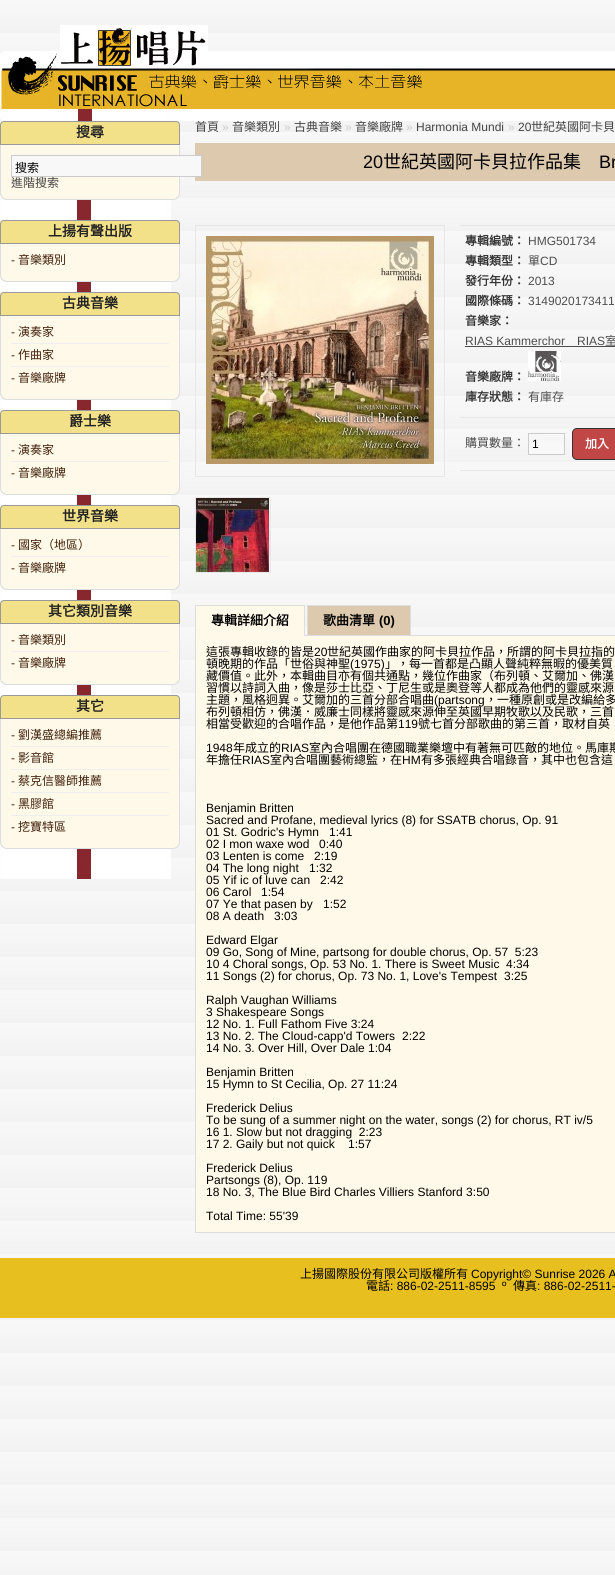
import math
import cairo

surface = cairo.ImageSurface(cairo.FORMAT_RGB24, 615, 1575)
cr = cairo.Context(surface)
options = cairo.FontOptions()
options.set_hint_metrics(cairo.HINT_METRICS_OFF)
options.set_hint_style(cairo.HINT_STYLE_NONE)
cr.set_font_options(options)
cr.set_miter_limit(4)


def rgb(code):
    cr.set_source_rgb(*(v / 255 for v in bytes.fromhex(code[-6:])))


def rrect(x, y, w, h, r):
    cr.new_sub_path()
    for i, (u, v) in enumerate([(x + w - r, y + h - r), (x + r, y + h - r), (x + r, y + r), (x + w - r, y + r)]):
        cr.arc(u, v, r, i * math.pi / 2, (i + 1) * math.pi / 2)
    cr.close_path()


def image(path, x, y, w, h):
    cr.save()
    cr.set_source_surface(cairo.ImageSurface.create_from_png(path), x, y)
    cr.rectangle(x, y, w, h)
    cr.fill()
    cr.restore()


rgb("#ffffff")
cr.paint()
image("img/1.png", 0, 0, 615, 1575)
rgb("#ffffff")
rrect(0, 51, 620, 70, 5)
cr.fill()
image("img/3.png", 0, 53, 615, 68)
image("img/2.png", 60, 25, 148, 41)
image("img/4.png", 0, 121, 171, 758)
rgb("#f2e189")
cr.new_path()
cr.move_to(4, 121.5)
cr.line_to(176, 121.5)
cr.curve_to(178, 121.5, 179.5, 123, 179.5, 125)
cr.line_to(179.5, 144.5)
cr.line_to(0.5, 144.5)
cr.line_to(0.5, 125)
cr.curve_to(0.5, 123, 2, 121.5, 4, 121.5)
cr.close_path()
cr.fill_preserve()
rgb("#999999")
cr.set_line_width(1)
cr.stroke()
rgb("#fff9e9")
cr.new_path()
cr.move_to(0, 145)
cr.line_to(180, 145)
cr.line_to(180, 193)
cr.curve_to(180, 197, 177, 200, 173, 200)
cr.line_to(7, 200)
cr.curve_to(3, 200, 0, 197, 0, 193)
cr.close_path()
cr.fill()
rgb("#dbdee1")
cr.set_fill_rule(cairo.FILL_RULE_EVEN_ODD)
cr.new_path()
cr.move_to(0, 145)
cr.line_to(180, 145)
cr.line_to(180, 193)
cr.curve_to(180, 197, 177, 200, 173, 200)
cr.line_to(7, 200)
cr.curve_to(3, 200, 0, 197, 0, 193)
cr.close_path()
cr.move_to(1, 145)
cr.line_to(179, 145)
cr.line_to(179, 193)
cr.curve_to(179, 196, 176, 199, 173, 199)
cr.line_to(7, 199)
cr.curve_to(4, 199, 1, 196, 1, 193)
cr.close_path()
cr.fill()
rgb("#ddc9ae")
cr.rectangle(195, 143, 420, 38)
cr.fill()
rgb("#f8f8f8")
cr.rectangle(11.5, 155.5, 190, 21)
cr.fill_preserve()
rgb("#cccccc")
cr.stroke()
rgb("#f2e189")
cr.new_path()
cr.move_to(4, 220.5)
cr.line_to(176, 220.5)
cr.curve_to(178, 220.5, 179.5, 222, 179.5, 224)
cr.line_to(179.5, 243.5)
cr.line_to(0.5, 243.5)
cr.line_to(0.5, 224)
cr.curve_to(0.5, 222, 2, 220.5, 4, 220.5)
cr.close_path()
cr.fill_preserve()
rgb("#999999")
cr.stroke()
rgb("#fff9e9")
cr.new_path()
cr.move_to(0, 244)
cr.line_to(180, 244)
cr.line_to(180, 275)
cr.curve_to(180, 279, 177, 282, 173, 282)
cr.line_to(7, 282)
cr.curve_to(3, 282, 0, 279, 0, 275)
cr.close_path()
cr.fill()
rgb("#dbdee1")
cr.new_path()
cr.move_to(0, 244)
cr.line_to(180, 244)
cr.line_to(180, 275)
cr.curve_to(180, 279, 177, 282, 173, 282)
cr.line_to(7, 282)
cr.curve_to(3, 282, 0, 279, 0, 275)
cr.close_path()
cr.move_to(1, 244)
cr.line_to(179, 244)
cr.line_to(179, 275)
cr.curve_to(179, 278, 176, 281, 173, 281)
cr.line_to(7, 281)
cr.curve_to(4, 281, 1, 278, 1, 275)
cr.close_path()
cr.fill()
rgb("#f2e189")
cr.new_path()
cr.move_to(4, 292.5)
cr.line_to(176, 292.5)
cr.curve_to(178, 292.5, 179.5, 294, 179.5, 296)
cr.line_to(179.5, 315.5)
cr.line_to(0.5, 315.5)
cr.line_to(0.5, 296)
cr.curve_to(0.5, 294, 2, 292.5, 4, 292.5)
cr.close_path()
cr.fill_preserve()
rgb("#999999")
cr.stroke()
rgb("#fff9e9")
cr.new_path()
cr.move_to(0, 316)
cr.line_to(180, 316)
cr.line_to(180, 393)
cr.curve_to(180, 397, 177, 400, 173, 400)
cr.line_to(7, 400)
cr.curve_to(3, 400, 0, 397, 0, 393)
cr.close_path()
cr.fill()
rgb("#dbdee1")
cr.new_path()
cr.move_to(0, 316)
cr.line_to(180, 316)
cr.line_to(180, 393)
cr.curve_to(180, 397, 177, 400, 173, 400)
cr.line_to(7, 400)
cr.curve_to(3, 400, 0, 397, 0, 393)
cr.close_path()
cr.move_to(1, 316)
cr.line_to(179, 316)
cr.line_to(179, 393)
cr.curve_to(179, 396, 176, 399, 173, 399)
cr.line_to(7, 399)
cr.curve_to(4, 399, 1, 396, 1, 393)
cr.close_path()
cr.fill()
rgb("#eeeeee")
cr.rectangle(11, 343, 158, 1)
cr.fill()
cr.rectangle(11, 366, 158, 1)
cr.fill()
rgb("#f2e189")
cr.new_path()
cr.move_to(4, 410.5)
cr.line_to(176, 410.5)
cr.curve_to(178, 410.5, 179.5, 412, 179.5, 414)
cr.line_to(179.5, 433.5)
cr.line_to(0.5, 433.5)
cr.line_to(0.5, 414)
cr.curve_to(0.5, 412, 2, 410.5, 4, 410.5)
cr.close_path()
cr.fill_preserve()
rgb("#999999")
cr.stroke()
rgb("#fff9e9")
cr.new_path()
cr.move_to(0, 434)
cr.line_to(180, 434)
cr.line_to(180, 488)
cr.curve_to(180, 492, 177, 495, 173, 495)
cr.line_to(7, 495)
cr.curve_to(3, 495, 0, 492, 0, 488)
cr.close_path()
cr.fill()
rgb("#dbdee1")
cr.new_path()
cr.move_to(0, 434)
cr.line_to(180, 434)
cr.line_to(180, 488)
cr.curve_to(180, 492, 177, 495, 173, 495)
cr.line_to(7, 495)
cr.curve_to(3, 495, 0, 492, 0, 488)
cr.close_path()
cr.move_to(1, 434)
cr.line_to(179, 434)
cr.line_to(179, 488)
cr.curve_to(179, 491, 176, 494, 173, 494)
cr.line_to(7, 494)
cr.curve_to(4, 494, 1, 491, 1, 488)
cr.close_path()
cr.fill()
rgb("#eeeeee")
cr.rectangle(11, 461, 158, 1)
cr.fill()
rgb("#f2e189")
cr.new_path()
cr.move_to(4, 505.5)
cr.line_to(176, 505.5)
cr.curve_to(178, 505.5, 179.5, 507, 179.5, 509)
cr.line_to(179.5, 528.5)
cr.line_to(0.5, 528.5)
cr.line_to(0.5, 509)
cr.curve_to(0.5, 507, 2, 505.5, 4, 505.5)
cr.close_path()
cr.fill_preserve()
rgb("#999999")
cr.stroke()
rgb("#fff9e9")
cr.new_path()
cr.move_to(0, 529)
cr.line_to(180, 529)
cr.line_to(180, 583)
cr.curve_to(180, 587, 177, 590, 173, 590)
cr.line_to(7, 590)
cr.curve_to(3, 590, 0, 587, 0, 583)
cr.close_path()
cr.fill()
rgb("#dbdee1")
cr.new_path()
cr.move_to(0, 529)
cr.line_to(180, 529)
cr.line_to(180, 583)
cr.curve_to(180, 587, 177, 590, 173, 590)
cr.line_to(7, 590)
cr.curve_to(3, 590, 0, 587, 0, 583)
cr.close_path()
cr.move_to(1, 529)
cr.line_to(179, 529)
cr.line_to(179, 583)
cr.curve_to(179, 586, 176, 589, 173, 589)
cr.line_to(7, 589)
cr.curve_to(4, 589, 1, 586, 1, 583)
cr.close_path()
cr.fill()
rgb("#eeeeee")
cr.rectangle(11, 556, 158, 1)
cr.fill()
rgb("#f2e189")
cr.new_path()
cr.move_to(4, 600.5)
cr.line_to(176, 600.5)
cr.curve_to(178, 600.5, 179.5, 602, 179.5, 604)
cr.line_to(179.5, 623.5)
cr.line_to(0.5, 623.5)
cr.line_to(0.5, 604)
cr.curve_to(0.5, 602, 2, 600.5, 4, 600.5)
cr.close_path()
cr.fill_preserve()
rgb("#999999")
cr.stroke()
rgb("#fff9e9")
cr.new_path()
cr.move_to(0, 624)
cr.line_to(180, 624)
cr.line_to(180, 678)
cr.curve_to(180, 682, 177, 685, 173, 685)
cr.line_to(7, 685)
cr.curve_to(3, 685, 0, 682, 0, 678)
cr.close_path()
cr.fill()
rgb("#dbdee1")
cr.new_path()
cr.move_to(0, 624)
cr.line_to(180, 624)
cr.line_to(180, 678)
cr.curve_to(180, 682, 177, 685, 173, 685)
cr.line_to(7, 685)
cr.curve_to(3, 685, 0, 682, 0, 678)
cr.close_path()
cr.move_to(1, 624)
cr.line_to(179, 624)
cr.line_to(179, 678)
cr.curve_to(179, 681, 176, 684, 173, 684)
cr.line_to(7, 684)
cr.curve_to(4, 684, 1, 681, 1, 678)
cr.close_path()
cr.fill()
rgb("#eeeeee")
cr.rectangle(11, 651, 158, 1)
cr.fill()
rgb("#f2e189")
cr.new_path()
cr.move_to(4, 695.5)
cr.line_to(176, 695.5)
cr.curve_to(178, 695.5, 179.5, 697, 179.5, 699)
cr.line_to(179.5, 718.5)
cr.line_to(0.5, 718.5)
cr.line_to(0.5, 699)
cr.curve_to(0.5, 697, 2, 695.5, 4, 695.5)
cr.close_path()
cr.fill_preserve()
rgb("#999999")
cr.stroke()
rgb("#fff9e9")
cr.new_path()
cr.move_to(0, 719)
cr.line_to(180, 719)
cr.line_to(180, 842)
cr.curve_to(180, 846, 177, 849, 173, 849)
cr.line_to(7, 849)
cr.curve_to(3, 849, 0, 846, 0, 842)
cr.close_path()
cr.fill()
rgb("#dbdee1")
cr.new_path()
cr.move_to(0, 719)
cr.line_to(180, 719)
cr.line_to(180, 842)
cr.curve_to(180, 846, 177, 849, 173, 849)
cr.line_to(7, 849)
cr.curve_to(3, 849, 0, 846, 0, 842)
cr.close_path()
cr.move_to(1, 719)
cr.line_to(179, 719)
cr.line_to(179, 842)
cr.curve_to(179, 845, 176, 848, 173, 848)
cr.line_to(7, 848)
cr.curve_to(4, 848, 1, 845, 1, 842)
cr.close_path()
cr.fill()
for x, y, w, h, color in [
    (11, 746, 158, 1, "#eeeeee"),
    (11, 769, 158, 1, "#eeeeee"),
    (11, 792, 158, 1, "#eeeeee"),
    (11, 815, 158, 1, "#eeeeee"),
]:
    rgb(color)
    cr.rectangle(x, y, w, h)
    cr.fill()
cr.rectangle(195.5, 225.5, 249, 251)
rgb("#e7e7e7")
cr.stroke()
image("img/5.png", 206, 236, 228, 228)
cr.rectangle(195.5, 497.5, 75, 75)
cr.stroke()
image("img/6.png", 196, 498, 74, 74)
for x, y, w, h, color in [
    (460, 225, 155, 1, "#e7e7e7"),
    (460, 417, 155, 1, "#e7e7e7"),
    (465, 346, 150, 1, "#4d4d4d"),
]:
    rgb(color)
    cr.rectangle(x, y, w, h)
    cr.fill()
image("img/7.png", 528, 351, 33, 30)
rgb("#e7e7e7")
cr.rectangle(460, 470, 155, 1)
cr.fill()
rgb("#f8f8f8")
cr.rectangle(529, 443, 35, 11)
cr.fill()
cr.rectangle(528.5, 433.5, 36, 21)
rgb("#cccccc")
cr.stroke()
rgb("#c14747")
rrect(572.5, 428.5, 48, 31, 4.5)
cr.fill_preserve()
rgb("#333333")
cr.stroke()
for x, y, w, h, color in [
    (305, 635, 310, 1, "#dddddd"),
    (196, 606, 108, 30, "#fff9e9"),
    (195, 605, 110, 1, "#dddddd"),
    (304, 605, 1, 31, "#dddddd"),
    (195, 605, 1, 31, "#dddddd"),
    (308, 606, 102, 29, "#ddc9ae"),
    (307, 605, 104, 1, "#dddddd"),
    (410, 605, 1, 30, "#dddddd"),
    (307, 605, 1, 30, "#dddddd"),
    (196, 636, 419, 596, "#fff9e9"),
    (195, 1232, 420, 1, "#dddddd"),
    (195, 636, 1, 597, "#dddddd"),
    (0, 1258, 615, 60, "#e7bf1f"),
]:
    rgb(color)
    cr.rectangle(x, y, w, h)
    cr.fill()
cr.select_font_face("Noto Sans CJK HK", cairo.FONT_SLANT_NORMAL, cairo.FONT_WEIGHT_BOLD)
cr.set_font_size(14)
rgb("#222222")
cr.move_to(76, 137)
cr.show_text("搜尋")
cr.select_font_face("Noto Sans CJK HK")
cr.set_font_size(12)
rgb("#000000")
cr.move_to(15, 172)
cr.show_text("搜索")
rgb("#444444")
cr.move_to(11, 187)
cr.show_text("進階搜索")
cr.select_font_face("Noto Sans CJK HK", cairo.FONT_SLANT_NORMAL, cairo.FONT_WEIGHT_BOLD)
cr.set_font_size(14)
rgb("#222222")
cr.move_to(48, 236)
cr.show_text("上揚有聲出版")
cr.select_font_face("Liberation Sans")
cr.set_font_size(12)
rgb("#42210b")
cr.move_to(11, 264)
cr.show_text("-")
cr.select_font_face("Noto Sans CJK HK")
cr.move_to(18, 264)
cr.show_text("音樂類別")
cr.select_font_face("Noto Sans CJK HK", cairo.FONT_SLANT_NORMAL, cairo.FONT_WEIGHT_BOLD)
cr.set_font_size(14)
rgb("#222222")
cr.move_to(62, 308)
cr.show_text("古典音樂")
cr.select_font_face("Liberation Sans")
cr.set_font_size(12)
rgb("#42210b")
cr.move_to(11, 336)
cr.show_text("-")
cr.select_font_face("Noto Sans CJK HK")
cr.move_to(18, 336)
cr.show_text("演奏家")
cr.select_font_face("Liberation Sans")
cr.move_to(11, 359)
cr.show_text("-")
cr.select_font_face("Noto Sans CJK HK")
cr.move_to(18, 359)
cr.show_text("作曲家")
cr.select_font_face("Liberation Sans")
cr.move_to(11, 382)
cr.show_text("-")
cr.select_font_face("Noto Sans CJK HK")
cr.move_to(18, 382)
cr.show_text("音樂廠牌")
cr.select_font_face("Noto Sans CJK HK", cairo.FONT_SLANT_NORMAL, cairo.FONT_WEIGHT_BOLD)
cr.set_font_size(14)
rgb("#222222")
cr.move_to(69, 426)
cr.show_text("爵士樂")
cr.select_font_face("Liberation Sans")
cr.set_font_size(12)
rgb("#42210b")
cr.move_to(11, 454)
cr.show_text("-")
cr.select_font_face("Noto Sans CJK HK")
cr.move_to(18, 454)
cr.show_text("演奏家")
cr.select_font_face("Liberation Sans")
cr.move_to(11, 477)
cr.show_text("-")
cr.select_font_face("Noto Sans CJK HK")
cr.move_to(18, 477)
cr.show_text("音樂廠牌")
cr.select_font_face("Noto Sans CJK HK", cairo.FONT_SLANT_NORMAL, cairo.FONT_WEIGHT_BOLD)
cr.set_font_size(14)
rgb("#222222")
cr.move_to(62, 521)
cr.show_text("世界音樂")
cr.select_font_face("Liberation Sans")
cr.set_font_size(12)
rgb("#42210b")
cr.move_to(11, 549)
cr.show_text("-")
cr.select_font_face("Noto Sans CJK HK")
cr.move_to(18, 549)
cr.show_text("國家（地區）")
cr.select_font_face("Liberation Sans")
cr.move_to(11, 572)
cr.show_text("-")
cr.select_font_face("Noto Sans CJK HK")
cr.move_to(18, 572)
cr.show_text("音樂廠牌")
cr.select_font_face("Noto Sans CJK HK", cairo.FONT_SLANT_NORMAL, cairo.FONT_WEIGHT_BOLD)
cr.set_font_size(14)
rgb("#222222")
cr.move_to(48, 616)
cr.show_text("其它類別音樂")
cr.select_font_face("Liberation Sans")
cr.set_font_size(12)
rgb("#42210b")
cr.move_to(11, 644)
cr.show_text("-")
cr.select_font_face("Noto Sans CJK HK")
cr.move_to(18, 644)
cr.show_text("音樂類別")
cr.select_font_face("Liberation Sans")
cr.move_to(11, 667)
cr.show_text("-")
cr.select_font_face("Noto Sans CJK HK")
cr.move_to(18, 667)
cr.show_text("音樂廠牌")
cr.select_font_face("Noto Sans CJK HK", cairo.FONT_SLANT_NORMAL, cairo.FONT_WEIGHT_BOLD)
cr.set_font_size(14)
rgb("#222222")
cr.move_to(76, 711)
cr.show_text("其它")
cr.select_font_face("Liberation Sans")
cr.set_font_size(12)
rgb("#42210b")
cr.move_to(11, 739)
cr.show_text("-")
cr.select_font_face("Noto Sans CJK HK")
cr.move_to(18, 739)
cr.show_text("劉漢盛總編推薦")
cr.select_font_face("Liberation Sans")
cr.move_to(11, 762)
cr.show_text("-")
cr.select_font_face("Noto Sans CJK HK")
cr.move_to(18, 762)
cr.show_text("影音館")
cr.select_font_face("Liberation Sans")
cr.move_to(11, 785)
cr.show_text("-")
cr.select_font_face("Noto Sans CJK HK")
cr.move_to(18, 785)
cr.show_text("蔡克信醫師推薦")
cr.select_font_face("Liberation Sans")
cr.move_to(11, 808)
cr.show_text("-")
cr.select_font_face("Noto Sans CJK HK")
cr.move_to(18, 808)
cr.show_text("黑膠館")
cr.select_font_face("Liberation Sans")
cr.move_to(11, 831)
cr.show_text("-")
cr.select_font_face("Noto Sans CJK HK")
cr.move_to(18, 831)
cr.show_text("挖寶特區")
rgb("#444444")
cr.move_to(195, 131)
cr.show_text("首頁")
cr.select_font_face("Liberation Sans")
rgb("#cccccc")
cr.move_to(222, 131)
cr.show_text("»")
cr.select_font_face("Noto Sans CJK HK")
rgb("#444444")
cr.move_to(232, 131)
cr.show_text("音樂類別")
cr.select_font_face("Liberation Sans")
rgb("#cccccc")
cr.move_to(284, 131)
cr.show_text("»")
cr.select_font_face("Noto Sans CJK HK")
rgb("#444444")
cr.move_to(294, 131)
cr.show_text("古典音樂")
cr.select_font_face("Liberation Sans")
rgb("#cccccc")
cr.move_to(345, 131)
cr.show_text("»")
cr.select_font_face("Noto Sans CJK HK")
rgb("#444444")
cr.move_to(355, 131)
cr.show_text("音樂廠牌")
cr.select_font_face("Liberation Sans")
rgb("#cccccc")
cr.move_to(406, 131)
cr.show_text("»")
rgb("#444444")
cr.move_to(416, 131)
cr.show_text("Harmonia Mundi")
rgb("#cccccc")
cr.move_to(508, 131)
cr.show_text("»")
rgb("#444444")
cr.move_to(518, 131)
cr.show_text("20")
cr.select_font_face("Noto Sans CJK HK")
cr.move_to(531, 131)
cr.show_text("世紀英國阿卡貝")
cr.select_font_face("Liberation Sans")
cr.set_font_size(18)
rgb("#000000")
cr.move_to(363, 168)
cr.show_text("20")
cr.select_font_face("Noto Sans CJK HK")
cr.move_to(383, 168)
cr.show_text("世紀英國阿卡貝拉作品集")
cr.select_font_face("Liberation Sans")
cr.move_to(599, 168)
cr.show_text("Br")
cr.select_font_face("Noto Sans CJK HK", cairo.FONT_SLANT_NORMAL, cairo.FONT_WEIGHT_BOLD)
cr.set_font_size(12)
rgb("#333333")
cr.move_to(465, 245)
cr.show_text("專輯編號：")
cr.select_font_face("Liberation Sans")
rgb("#4d4d4d")
cr.move_to(528, 245)
cr.show_text("HMG501734")
cr.select_font_face("Noto Sans CJK HK", cairo.FONT_SLANT_NORMAL, cairo.FONT_WEIGHT_BOLD)
rgb("#333333")
cr.move_to(465, 265)
cr.show_text("專輯類型：")
cr.select_font_face("Noto Sans CJK HK")
rgb("#4d4d4d")
cr.move_to(528, 265)
cr.show_text("單")
cr.select_font_face("Liberation Sans")
cr.move_to(540, 265)
cr.show_text("CD")
cr.select_font_face("Noto Sans CJK HK", cairo.FONT_SLANT_NORMAL, cairo.FONT_WEIGHT_BOLD)
rgb("#333333")
cr.move_to(465, 285)
cr.show_text("發行年份：")
cr.select_font_face("Liberation Sans")
rgb("#4d4d4d")
cr.move_to(528, 285)
cr.show_text("2013")
cr.select_font_face("Noto Sans CJK HK", cairo.FONT_SLANT_NORMAL, cairo.FONT_WEIGHT_BOLD)
rgb("#333333")
cr.move_to(465, 305)
cr.show_text("國際條碼：")
cr.select_font_face("Liberation Sans")
rgb("#4d4d4d")
cr.move_to(528, 305)
cr.show_text("3149020173411")
cr.select_font_face("Noto Sans CJK HK", cairo.FONT_SLANT_NORMAL, cairo.FONT_WEIGHT_BOLD)
rgb("#333333")
cr.move_to(465, 325)
cr.show_text("音樂家：")
cr.select_font_face("Liberation Sans")
rgb("#4d4d4d")
cr.move_to(465, 345)
cr.show_text("RIAS Kammerchor")
cr.move_to(577, 345)
cr.show_text("RIAS")
cr.select_font_face("Noto Sans CJK HK")
cr.move_to(605, 345)
cr.show_text("室")
cr.select_font_face("Noto Sans CJK HK", cairo.FONT_SLANT_NORMAL, cairo.FONT_WEIGHT_BOLD)
rgb("#333333")
cr.move_to(465, 381)
cr.show_text("音樂廠牌：")
cr.move_to(465, 401)
cr.show_text("庫存狀態：")
cr.select_font_face("Noto Sans CJK HK")
rgb("#4d4d4d")
cr.move_to(528, 401)
cr.show_text("有庫存")
cr.move_to(465, 447)
cr.show_text("購買數量：")
cr.select_font_face("Liberation Sans")
rgb("#000000")
cr.move_to(532, 448)
cr.show_text("1")
cr.select_font_face("Noto Sans CJK HK", cairo.FONT_SLANT_NORMAL, cairo.FONT_WEIGHT_BOLD)
rgb("#ffffff")
cr.move_to(585, 448)
cr.show_text("加入")
cr.set_font_size(13)
rgb("#000000")
cr.move_to(211, 625)
cr.show_text("專輯詳細介紹")
cr.move_to(323, 625)
cr.show_text("歌曲清單")
cr.select_font_face("Liberation Sans", cairo.FONT_SLANT_NORMAL, cairo.FONT_WEIGHT_BOLD)
cr.move_to(379, 625)
cr.show_text("(0)")
cr.select_font_face("Noto Sans CJK HK")
cr.set_font_size(12)
cr.move_to(206, 656)
cr.show_text("這張專輯收錄的皆是")
cr.select_font_face("Liberation Sans")
cr.move_to(314, 656)
cr.show_text("20")
cr.select_font_face("Noto Sans CJK HK")
cr.move_to(327, 656)
cr.show_text("世紀英國作曲家的阿卡貝拉作品，所謂的阿卡貝拉指的")
cr.move_to(206, 668)
cr.show_text("頓晚期的作品「世俗與神聖")
cr.select_font_face("Liberation Sans")
cr.move_to(350, 668)
cr.show_text("(1975)")
cr.select_font_face("Noto Sans CJK HK")
for x, y, s in [
    (385, 668, "」，每一首都是凸顯人聲純粹無暇的優美質"),
    (206, 680, "藏價值。此外，本輯曲目亦有個共通點，幾位作曲家（布列頓、艾爾加、佛漢"),
    (206, 692, "習慣以詩詞入曲，像是莎士比亞、丁尼生或是奧登等人都成為他們的靈感來源"),
    (206, 704, "主題，風格迥異。艾爾加的三首分部合唱曲"),
]:
    cr.move_to(x, y)
    cr.show_text(s)
cr.select_font_face("Liberation Sans")
cr.move_to(434, 704)
cr.show_text("(partsong")
cr.select_font_face("Noto Sans CJK HK")
for x, y, s in [
    (485, 704, "，一種原創或是改編給多"),
    (206, 716, "布列頓相仿，佛漢．威廉士同樣將靈感來源伸至英國早期牧歌以及民歌，三首"),
    (206, 728, "相當受歡迎的合唱作品，是他作品第"),
]:
    cr.move_to(x, y)
    cr.show_text(s)
cr.select_font_face("Liberation Sans")
cr.move_to(398, 728)
cr.show_text("119")
cr.select_font_face("Noto Sans CJK HK")
cr.move_to(418, 728)
cr.show_text("號七首分部歌曲的第三首，取材自英")
cr.select_font_face("Liberation Sans")
cr.move_to(206, 752)
cr.show_text("1948")
cr.select_font_face("Noto Sans CJK HK")
cr.move_to(233, 752)
cr.show_text("年成立的")
cr.select_font_face("Liberation Sans")
cr.move_to(281, 752)
cr.show_text("RIAS")
cr.select_font_face("Noto Sans CJK HK")
cr.move_to(309, 752)
cr.show_text("室內合唱團在德國職業樂壇中有著無可匹敵的地位。馬庫斯")
cr.move_to(206, 764)
cr.show_text("年擔任")
cr.select_font_face("Liberation Sans")
cr.move_to(242, 764)
cr.show_text("RIAS")
cr.select_font_face("Noto Sans CJK HK")
cr.move_to(270, 764)
cr.show_text("室內合唱團藝術總監，在")
cr.select_font_face("Liberation Sans")
cr.move_to(402, 764)
cr.show_text("HM")
cr.select_font_face("Noto Sans CJK HK")
cr.move_to(421, 764)
cr.show_text("有多張經典合唱錄音，其中也包含這")
cr.select_font_face("Liberation Sans")
for x, y, s in [
    (206, 812, "Benjamin Britten"),
    (206, 824, "Sacred and Profane, medieval lyrics (8) for SSATB chorus, Op. 91"),
    (206, 836, "01 St. Godric's Hymn"),
    (329, 836, "1:41"),
    (206, 848, "02 I mon waxe wod"),
    (319, 848, "0:40"),
    (206, 860, "03 Lenten is come"),
    (314, 860, "2:19"),
    (206, 872, "04 The long night"),
    (309, 872, "1:32"),
    (206, 884, "05 Yif ic of luve can"),
    (320, 884, "2:42"),
    (206, 896, "06 Carol"),
    (261, 896, "1:54"),
    (206, 908, "07 Ye that pasen by"),
    (323, 908, "1:52"),
    (206, 920, "08 A death"),
    (274, 920, "3:03"),
    (206, 944, "Edward Elgar"),
    (206, 956, "09 Go, Song of Mine, partsong for double chorus, Op. 57  5:23"),
    (206, 968, "10 4 Choral songs, Op. 53 No. 1. There is Sweet Music"),
    (506, 968, "4:34"),
    (206, 980, "11 Songs (2) for chorus, Op. 73 No. 1, Love's Tempest"),
    (504, 980, "3:25"),
    (206, 1004, "Ralph Vaughan Williams"),
    (206, 1016, "3 Shakespeare Songs"),
    (206, 1028, "12 No. 1. Full Fathom Five 3:24"),
    (206, 1040, "13 No. 2. The Cloud-capp'd Towers"),
    (402, 1040, "2:22"),
    (206, 1052, "14 No. 3. Over Hill, Over Dale 1:04"),
    (206, 1076, "Benjamin Britten"),
    (206, 1088, "15 Hymn to St Cecilia, Op. 27 11:24"),
    (206, 1112, "Frederick Delius"),
    (206, 1124, "To be sung of a summer night on the water, songs (2) for chorus, RT iv/5"),
    (206, 1136, "16 1. Slow but not dragging  2:23"),
    (206, 1148, "17 2. Gaily but not quick    1:57"),
    (206, 1172, "Frederick Delius"),
    (206, 1184, "Partsongs (8), Op. 119"),
    (206, 1196, "18 No. 3, The Blue Bird Charles Villiers Stanford 3:50"),
    (206, 1220, "Total Time: 55'39"),
]:
    cr.move_to(x, y)
    cr.show_text(s)
cr.select_font_face("Noto Sans CJK HK")
cr.move_to(300, 1278)
cr.show_text("上揚國際股份有限公司版權所有")
cr.select_font_face("Liberation Sans")
cr.move_to(471, 1278)
cr.show_text("Copyright© Sunrise 2026 A")
cr.select_font_face("Noto Sans CJK HK")
cr.move_to(366, 1290)
cr.show_text("電話")
cr.select_font_face("Liberation Sans")
cr.move_to(390, 1290)
cr.show_text(": 886-02-2511-8595  º")
cr.select_font_face("Noto Sans CJK HK")
cr.move_to(513, 1290)
cr.show_text("傳真")
cr.select_font_face("Liberation Sans")
cr.move_to(537, 1290)
cr.show_text(": 886-02-2511-")
surface.write_to_png("page.png")
